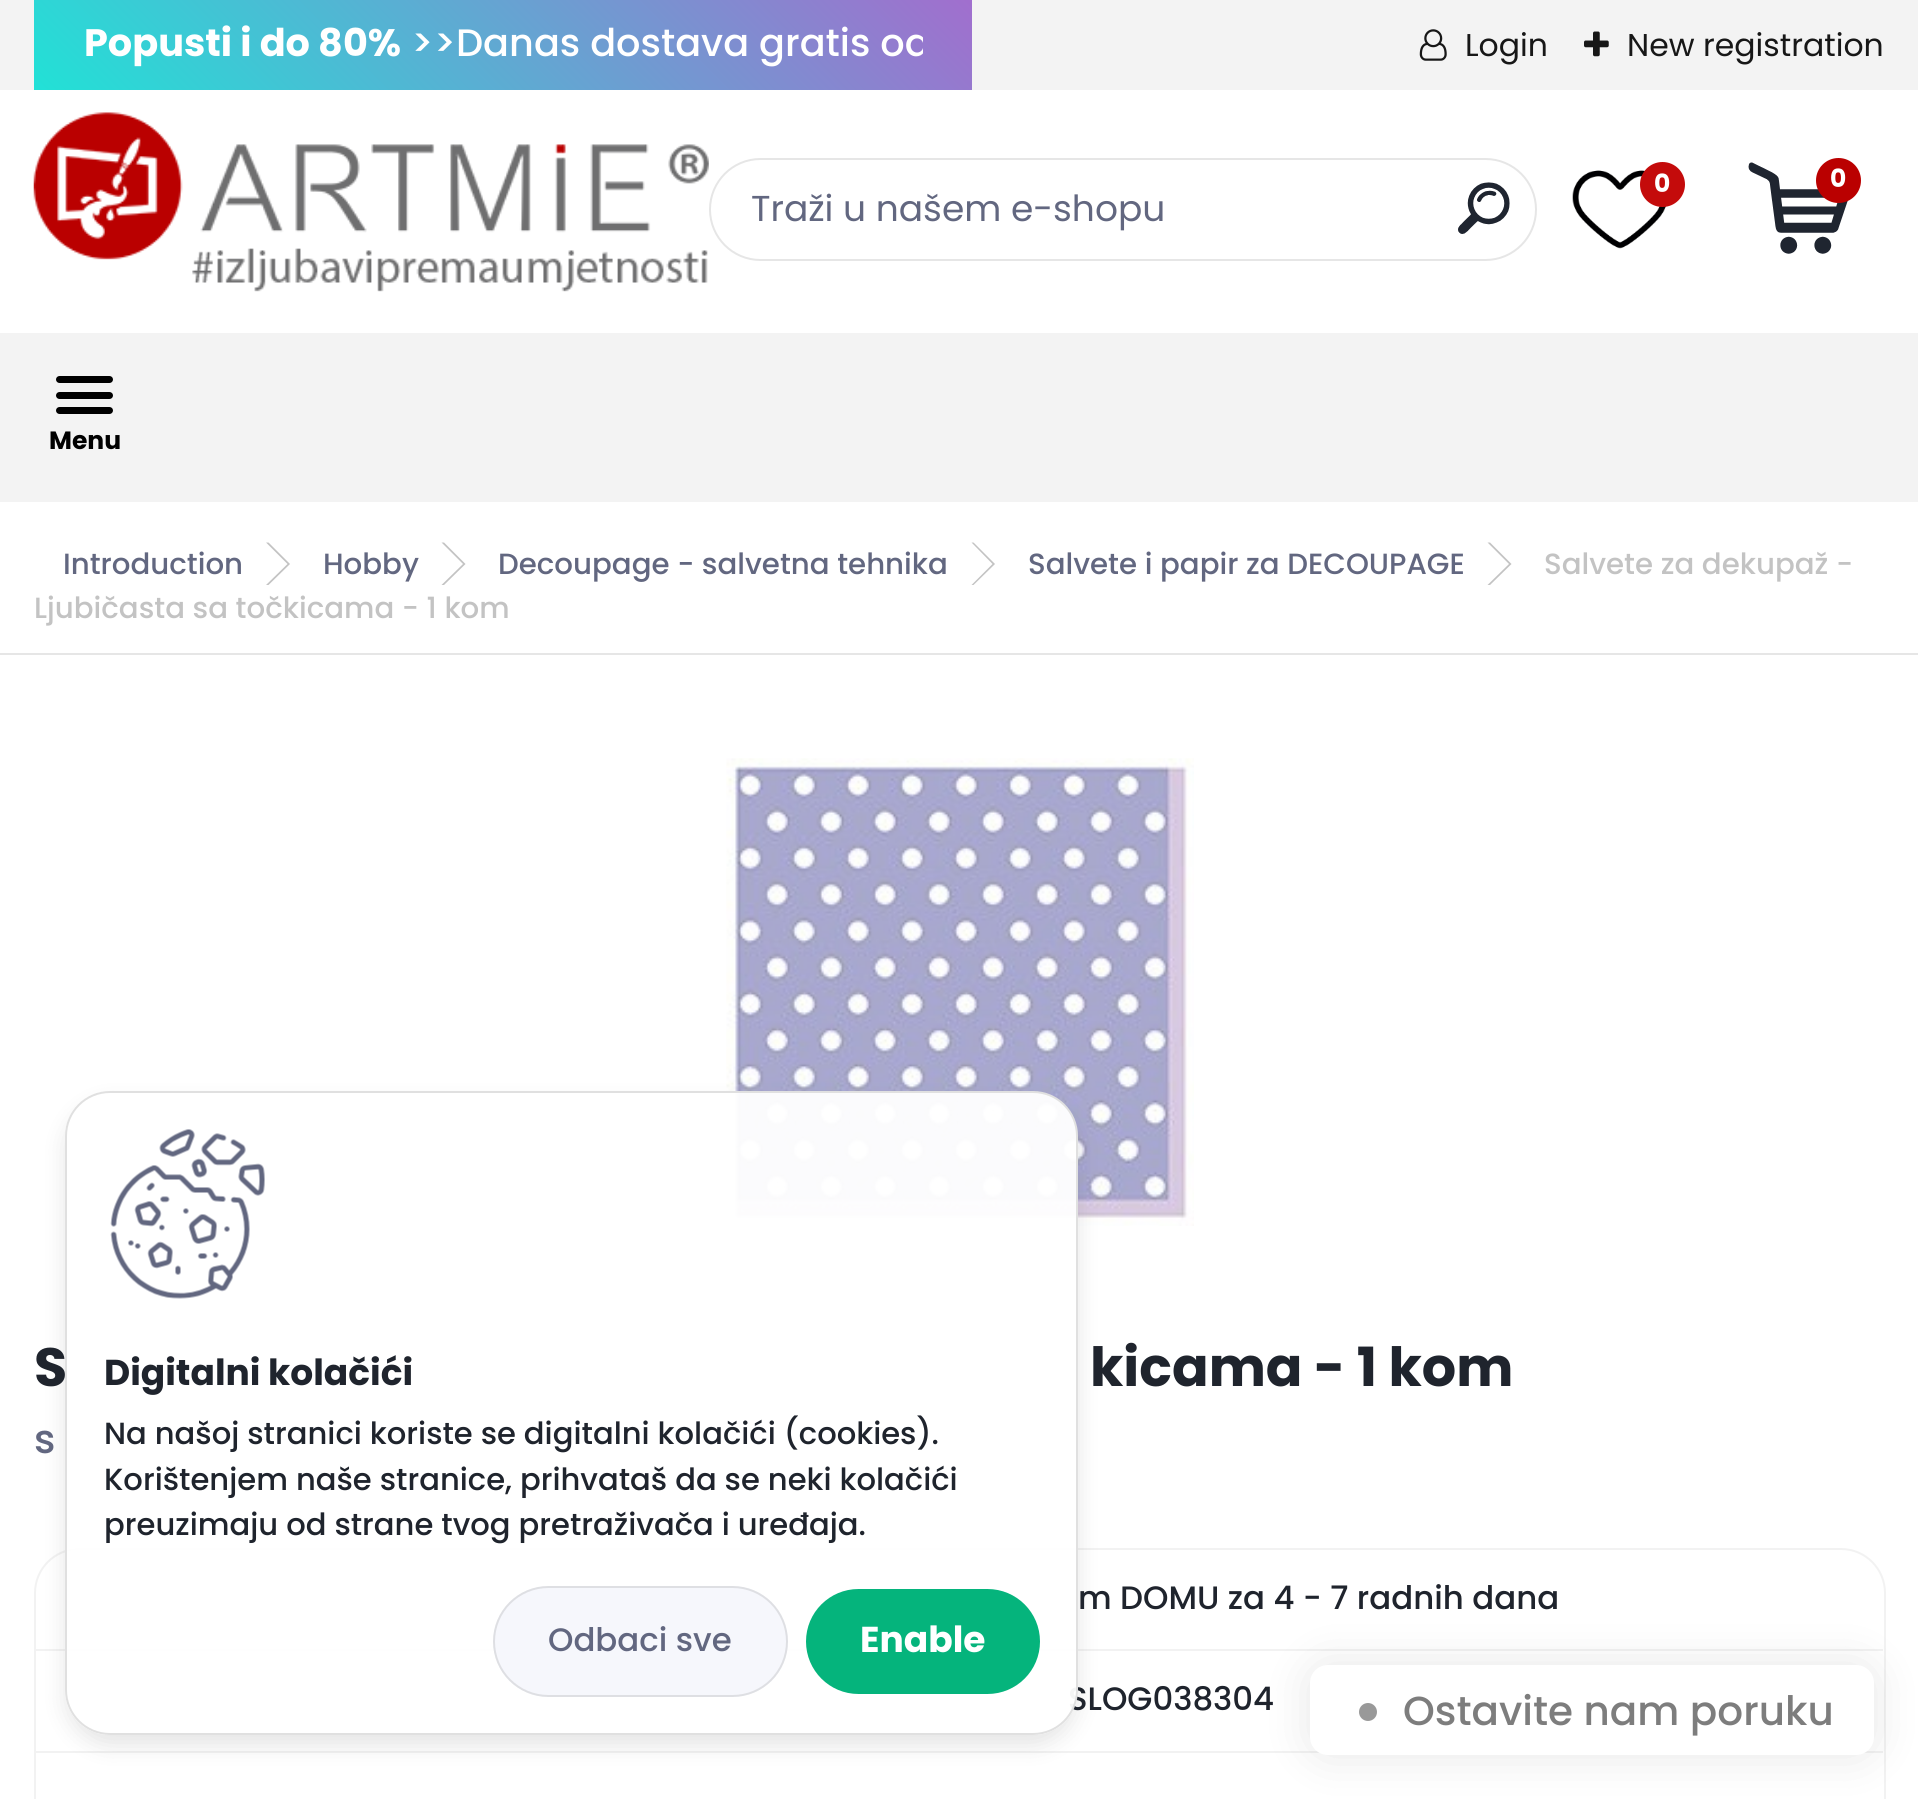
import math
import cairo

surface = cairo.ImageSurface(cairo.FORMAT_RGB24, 1918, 1799)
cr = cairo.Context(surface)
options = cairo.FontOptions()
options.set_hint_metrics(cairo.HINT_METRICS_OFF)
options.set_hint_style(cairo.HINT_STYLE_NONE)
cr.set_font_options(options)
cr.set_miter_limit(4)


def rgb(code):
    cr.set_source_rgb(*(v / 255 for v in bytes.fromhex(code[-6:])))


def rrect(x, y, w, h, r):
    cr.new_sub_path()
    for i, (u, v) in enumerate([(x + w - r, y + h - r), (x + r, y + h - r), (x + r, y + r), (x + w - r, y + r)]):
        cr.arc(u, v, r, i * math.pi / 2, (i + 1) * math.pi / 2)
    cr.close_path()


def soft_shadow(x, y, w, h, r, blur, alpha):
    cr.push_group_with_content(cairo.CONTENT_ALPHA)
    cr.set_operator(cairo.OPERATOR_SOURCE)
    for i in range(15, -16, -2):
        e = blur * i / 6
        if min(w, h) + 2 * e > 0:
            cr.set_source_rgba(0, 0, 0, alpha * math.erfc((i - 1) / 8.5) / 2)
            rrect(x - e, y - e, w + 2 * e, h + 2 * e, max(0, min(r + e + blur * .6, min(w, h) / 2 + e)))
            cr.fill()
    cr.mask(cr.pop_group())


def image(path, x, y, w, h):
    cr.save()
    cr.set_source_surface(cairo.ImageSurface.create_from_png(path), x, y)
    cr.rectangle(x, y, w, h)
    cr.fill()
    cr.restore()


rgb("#f3f3f3")
cr.paint()
gradient = cairo.LinearGradient(882, 1208, 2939, -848)
gradient.add_color_stop_rgba(0, 0, 1, 0.851, 1)
gradient.add_color_stop_rgba(0.5, 1, 0.102, 0.78, 1)
gradient.add_color_stop_rgba(1, 0, 1, 0.851, 1)
cr.set_source(gradient)
cr.rectangle(34, 0, 938, 90)
cr.fill()
rgb("#ffffff")
cr.rectangle(0, 90, 1918, 1709)
cr.fill()
rgb("#f3f3f3")
cr.rectangle(0, 333, 1918, 169)
cr.fill()
rgb("#000000")
rrect(56, 376, 57, 7, 3.5)
cr.fill()
rrect(56, 392, 57, 7, 3.5)
cr.fill()
rrect(56, 407, 57, 7, 3.5)
cr.fill()
image("img/1.png", 1419, 29, 28, 32)
image("img/2.png", 1584, 31, 25, 26)
image("img/3.png", 33, 112, 676, 180)
image("img/4.png", 1572, 170, 94, 79)
rgb("#c40b0b")
cr.arc(1662.5, 184.5, 22.5, 0, 2 * math.pi)
cr.fill()
image("img/5.png", 1748, 162, 100, 92)
rgb("#ba0000")
cr.arc(1838.5, 180.5, 22.5, 0, 2 * math.pi)
cr.fill()
rrect(710, 159, 826, 101, 50.5)
rgb("#e6e6e6")
cr.stroke()
image("img/6.png", 1458, 182, 52, 52)
cr.rectangle(0, 653, 1918, 2)
cr.fill()
rgb("#c3c3c3")
cr.new_path()
cr.move_to(266, 542.5)
cr.line_to(268.5, 542.5)
cr.line_to(290, 564)
cr.line_to(287.5, 564)
cr.close_path()
cr.move_to(287.5, 564)
cr.line_to(290, 564)
cr.line_to(268.5, 585)
cr.line_to(266, 585)
cr.close_path()
cr.fill()
cr.new_path()
cr.move_to(441.5, 542.5)
cr.line_to(444, 542.5)
cr.line_to(465.5, 564)
cr.line_to(463, 564)
cr.close_path()
cr.move_to(463, 564)
cr.line_to(465.5, 564)
cr.line_to(444, 585)
cr.line_to(441.5, 585)
cr.close_path()
cr.fill()
cr.new_path()
cr.move_to(971.5, 542.5)
cr.line_to(973.5, 542.5)
cr.line_to(995, 564)
cr.line_to(992.5, 564)
cr.close_path()
cr.move_to(992.5, 564)
cr.line_to(995, 564)
cr.line_to(973.5, 585)
cr.line_to(971.5, 585)
cr.close_path()
cr.fill()
cr.new_path()
cr.move_to(1487.5, 542.5)
cr.line_to(1490, 542.5)
cr.line_to(1511.5, 564)
cr.line_to(1509, 564)
cr.close_path()
cr.move_to(1509, 564)
cr.line_to(1511.5, 564)
cr.line_to(1490, 585)
cr.line_to(1487.5, 585)
cr.close_path()
cr.fill()
image("img/7.png", 726, 758, 468, 468)
rrect(35, 1549, 1850, 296, 44)
rgb("#f2f2f2")
cr.stroke()
cr.rectangle(36, 1649, 1847, 2)
cr.fill()
cr.rectangle(36, 1751, 1847, 2)
cr.fill()
rgb("#000000")
soft_shadow(1310, 1665, 564, 90, 18, 22.5, 0.1)
rgb("#ffffff")
rrect(1310, 1665, 564, 90, 18)
cr.fill()
rgb("#999999")
cr.arc(1368, 1712, 13.5, 0, 2 * math.pi)
cr.fill_preserve()
rgb("#ffffff")
cr.set_line_width(9)
cr.stroke()
cr.save()
cr.set_fill_rule(cairo.FILL_RULE_EVEN_ODD)
cr.new_path()
cr.move_to(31, 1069)
cr.line_to(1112, 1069)
cr.line_to(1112, 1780)
cr.line_to(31, 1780)
cr.close_path()
cr.move_to(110, 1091)
cr.line_to(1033, 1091)
cr.curve_to(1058, 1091, 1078, 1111, 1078, 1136)
cr.line_to(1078, 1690)
cr.curve_to(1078, 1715, 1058, 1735, 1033, 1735)
cr.line_to(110, 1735)
cr.curve_to(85, 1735, 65, 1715, 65, 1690)
cr.line_to(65, 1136)
cr.curve_to(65, 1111, 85, 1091, 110, 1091)
cr.close_path()
cr.clip()
rgb("#000000")
soft_shadow(65, 1103, 1013, 643, 45, 11, 0.1)
cr.restore()
cr.select_font_face("Poppins", cairo.FONT_SLANT_NORMAL, cairo.FONT_WEIGHT_BOLD)
cr.set_font_size(38.25)
cr.move_to(84, 56)
cr.show_text("Popusti i do 80%")
cr.select_font_face("Poppins Medium")
cr.move_to(411, 56)
cr.show_text(">>")
cr.save()
cr.rectangle(83, 16, 840, 58)
cr.clip()
cr.move_to(456, 56)
cr.show_text("Danas dostava gratis od")
cr.restore()
cr.select_font_face("Poppins", cairo.FONT_SLANT_NORMAL, cairo.FONT_WEIGHT_BOLD)
cr.set_font_size(25)
rgb("#000000")
cr.move_to(49, 449)
cr.show_text("Menu")
cr.select_font_face("Poppins")
cr.set_font_size(31.5)
rgb("#171717")
cr.move_to(1465, 56)
cr.show_text("Login")
cr.move_to(1627, 56)
cr.show_text("New registration")
cr.select_font_face("Poppins", cairo.FONT_SLANT_NORMAL, cairo.FONT_WEIGHT_BOLD)
cr.set_font_size(25)
rgb("#ffffff")
cr.move_to(1654, 192)
cr.show_text("0")
cr.move_to(1830, 187)
cr.show_text("0")
cr.select_font_face("Poppins")
cr.set_font_size(36)
rgb("#626780")
cr.move_to(751, 221)
cr.show_text("Traži u našem e-shopu")
cr.select_font_face("Poppins Medium")
cr.set_font_size(29.25)
for x, y, s in [
    (63, 574, "Introduction"),
    (323, 574, "Hobby"),
    (498, 574, "Decoupage - salvetna tehnika"),
    (1028, 574, "Salvete i papir za DECOUPAGE"),
]:
    cr.move_to(x, y)
    cr.show_text(s)
rgb("#c3c3c3")
cr.move_to(1544, 574)
cr.show_text("Salvete za dekupaž -")
cr.move_to(34, 618)
cr.show_text("Ljubičasta sa točkicama - 1 kom")
cr.select_font_face("Poppins", cairo.FONT_SLANT_NORMAL, cairo.FONT_WEIGHT_BOLD)
cr.set_font_size(54)
rgb("#1f242d")
cr.move_to(34, 1386)
cr.show_text("S")
cr.move_to(1090, 1386)
cr.show_text("kicama - 1 kom")
cr.select_font_face("Poppins Medium")
cr.set_font_size(40)
rgb("#626780")
cr.move_to(34, 1453)
cr.show_text("s")
cr.set_font_size(32.4)
rgb("#1f242d")
cr.move_to(1078, 1609)
cr.show_text("m DOMU za 4 - 7 radnih dana")
cr.move_to(1068, 1710)
cr.show_text("SLOG038304")
cr.set_font_size(40.5)
rgb("#7d7d7d")
cr.move_to(1403, 1725)
cr.show_text("Ostavite nam poruku")
cr.set_source_rgba(1, 1, 1, 0.95)
rrect(66, 1092, 1011, 642, 44)
cr.fill_preserve()
rgb("#e0e0e0")
cr.set_line_width(2)
cr.stroke()
image("img/8.png", 110, 1129, 155, 170)
cr.select_font_face("Poppins", cairo.FONT_SLANT_NORMAL, cairo.FONT_WEIGHT_BOLD)
cr.set_font_size(36)
rgb("#1f242d")
cr.move_to(104, 1385)
cr.show_text("Digitalni kolačići")
cr.select_font_face("Poppins Medium")
cr.set_font_size(30.6)
for x, y, s in [
    (104, 1444, "Na našoj stranici koriste se digitalni kolačići (cookies)."),
    (104, 1490, "Korištenjem naše stranice, prihvataš da se neki kolačići"),
    (104, 1535, "preuzimaju od strane tvog pretraživača i uređaja."),
]:
    cr.move_to(x, y)
    cr.show_text(s)
rgb("#f6f7fc")
rrect(493, 1586, 295, 111, 55.5)
cr.fill()
rrect(494, 1587, 293, 109, 54.5)
cr.set_source_rgba(0, 0, 0, 0.1)
cr.stroke()
cr.set_font_size(32.4)
rgb("#626780")
cr.move_to(548, 1651)
cr.show_text("Odbaci sve")
rgb("#05b47c")
rrect(806, 1589, 234, 105, 52.5)
cr.fill()
cr.select_font_face("Poppins", cairo.FONT_SLANT_NORMAL, cairo.FONT_WEIGHT_BOLD)
cr.set_font_size(36)
rgb("#ffffff")
cr.move_to(860, 1652)
cr.show_text("Enable")
surface.write_to_png("page.png")
